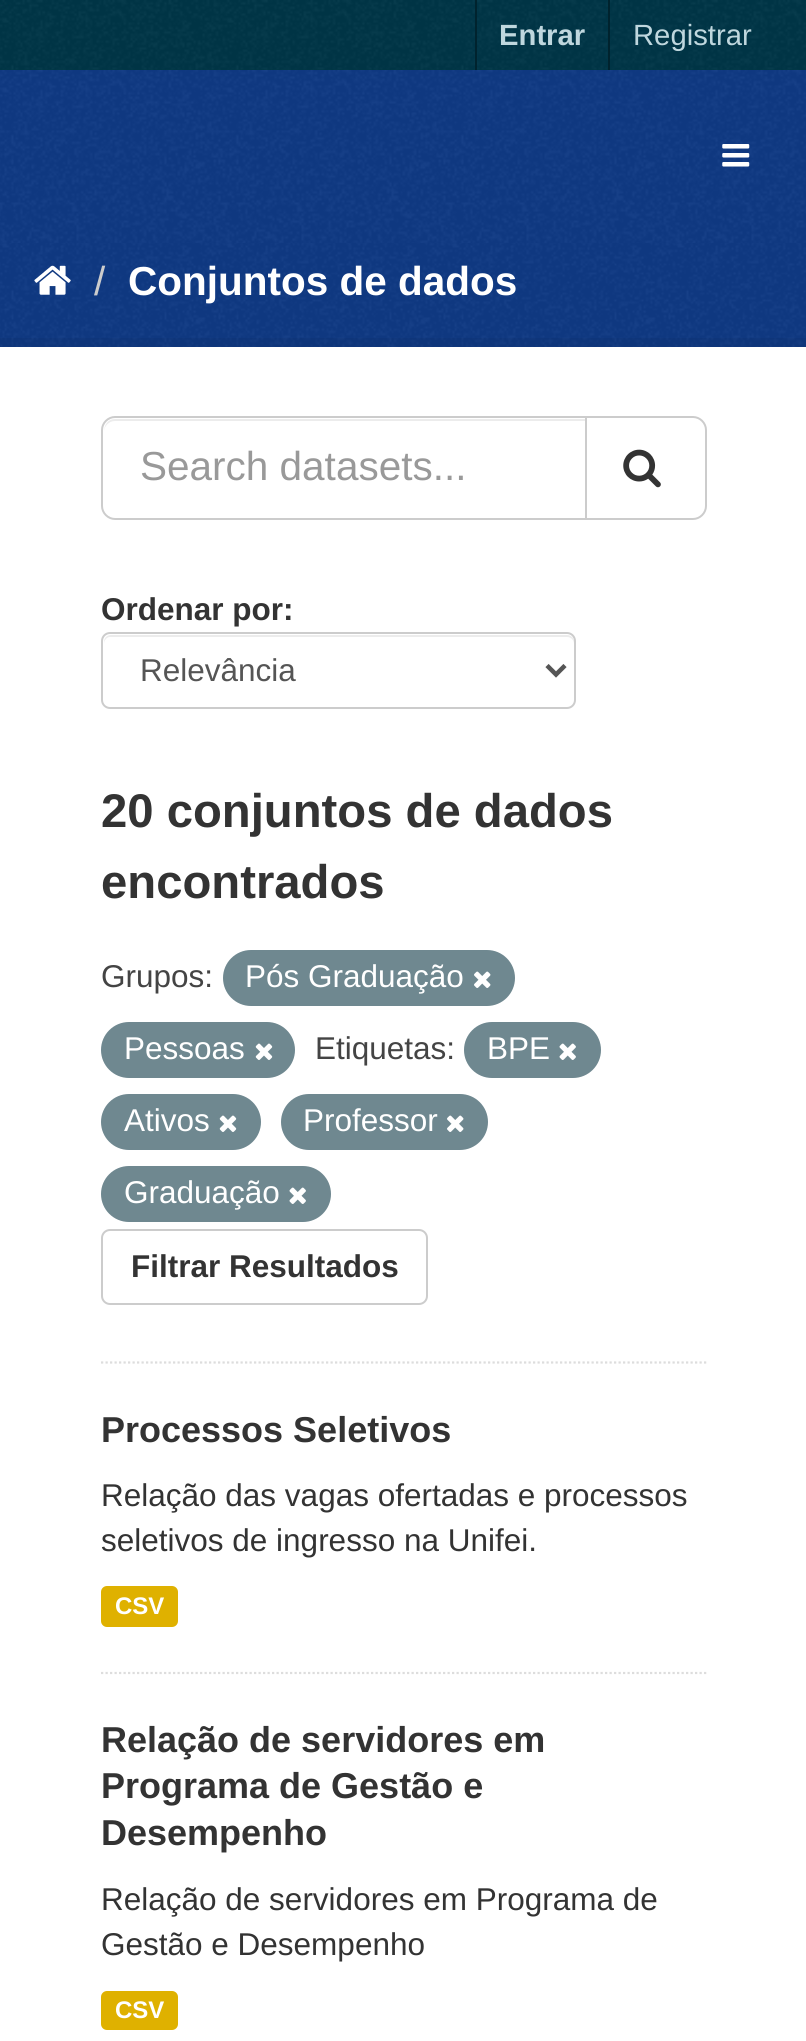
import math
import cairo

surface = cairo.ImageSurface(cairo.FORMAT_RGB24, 806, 2041)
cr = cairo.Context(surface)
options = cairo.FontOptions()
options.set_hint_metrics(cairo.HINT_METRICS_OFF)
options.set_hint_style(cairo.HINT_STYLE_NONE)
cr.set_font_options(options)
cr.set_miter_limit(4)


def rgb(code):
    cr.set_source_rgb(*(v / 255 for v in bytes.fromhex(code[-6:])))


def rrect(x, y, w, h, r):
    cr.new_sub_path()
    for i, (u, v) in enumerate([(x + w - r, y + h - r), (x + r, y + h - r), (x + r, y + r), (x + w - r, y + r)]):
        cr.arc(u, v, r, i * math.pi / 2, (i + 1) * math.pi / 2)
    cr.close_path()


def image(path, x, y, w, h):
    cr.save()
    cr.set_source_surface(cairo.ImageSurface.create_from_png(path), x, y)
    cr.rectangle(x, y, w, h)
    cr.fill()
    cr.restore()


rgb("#103a84")
cr.paint()
image("img/1.png", 0, 243, 806, 104)
rgb("#003647")
cr.rectangle(0, 0, 806, 70)
cr.fill()
image("img/2.png", 0, 0, 806, 70)
rgb("#00232e")
cr.rectangle(475, 0, 2, 70)
cr.fill()
cr.rectangle(608, 0, 2, 70)
cr.fill()
image("img/3.png", 0, 70, 806, 173)
image("img/4.png", 722, 144, 28, 23)
image("img/5.png", 34, 265, 37, 30)
cr.rectangle(-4.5, 342.5, 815, 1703)
cr.set_source_rgba(0, 0, 0, 0.05)
cr.set_line_width(9)
cr.stroke()
rgb("#ffffff")
cr.rectangle(0, 347, 806, 1694)
cr.fill()
cr.new_path()
cr.move_to(101, 1362.5)
cr.line_to(706.5, 1362.5)
rgb("#dddddd")
cr.set_line_width(2.2)
cr.set_dash([2.25, 2.25])
cr.stroke()
rgb("#ececec")
cr.new_path()
cr.move_to(115, 421)
cr.line_to(585, 421)
cr.line_to(585, 419)
cr.line_to(115, 419)
cr.curve_to(108, 419, 104, 425, 104, 432)
cr.curve_to(104, 426, 109, 421, 115, 421)
cr.close_path()
cr.fill()
cr.new_path()
cr.move_to(115, 417)
cr.line_to(586, 417)
cr.line_to(586, 519)
cr.line_to(115, 519)
cr.curve_to(108, 519, 102, 513, 102, 506)
cr.line_to(102, 430)
cr.curve_to(102, 423, 108, 417, 115, 417)
cr.close_path()
rgb("#cccccc")
cr.set_line_width(2)
cr.set_dash([])
cr.stroke()
rgb("#ffffff")
cr.new_path()
cr.move_to(586, 417)
cr.line_to(693, 417)
cr.curve_to(700, 417, 706, 423, 706, 430)
cr.line_to(706, 506)
cr.curve_to(706, 513, 700, 519, 693, 519)
cr.line_to(586, 519)
cr.close_path()
cr.fill_preserve()
rgb("#cccccc")
cr.stroke()
image("img/6.png", 623, 449, 38, 39)
rgb("#ececec")
cr.new_path()
cr.move_to(110, 637)
cr.line_to(567, 637)
cr.curve_to(571, 637, 574, 640, 574, 644)
cr.line_to(574, 642)
cr.curve_to(574, 638, 571, 635, 567, 635)
cr.line_to(111, 635)
cr.curve_to(107, 635, 104, 638, 104, 642)
cr.line_to(104, 644)
cr.curve_to(104, 640, 107, 637, 110, 637)
cr.close_path()
cr.fill()
rrect(102, 633, 473, 75, 8)
rgb("#cccccc")
cr.stroke()
cr.new_path()
cr.move_to(547, 665.5)
cr.line_to(556, 674.5)
cr.line_to(565, 665.5)
rgb("#555555")
cr.set_line_width(4.5)
cr.stroke()
rgb("#6f8890")
rrect(223, 950, 292, 56, 28)
cr.fill()
image("img/7.png", 474, 971, 17, 17)
rrect(101, 1022, 194, 56, 28)
cr.fill()
image("img/8.png", 255, 1043, 18, 17)
rrect(464, 1022, 137, 56, 28)
cr.fill()
image("img/9.png", 559, 1043, 17, 17)
rrect(101, 1094, 160, 56, 28)
cr.fill()
image("img/8.png", 219, 1115, 18, 17)
rrect(281, 1094, 207, 56, 28)
cr.fill()
image("img/7.png", 447, 1115, 17, 17)
rrect(101, 1166, 230, 56, 28)
cr.fill()
image("img/9.png", 289, 1187, 17, 17)
rrect(102, 1230, 325, 74, 8)
rgb("#cccccc")
cr.set_line_width(2)
cr.stroke()
cr.new_path()
cr.move_to(101, 1673)
cr.line_to(706.5, 1673)
rgb("#dddddd")
cr.set_line_width(2.2)
cr.set_dash([2.25, 2.25])
cr.stroke()
rgb("#dfb100")
rrect(101, 1586, 77, 41, 6)
cr.fill()
rrect(101, 1991, 77, 39, 6)
cr.fill()
cr.select_font_face("Liberation Sans", cairo.FONT_SLANT_NORMAL, cairo.FONT_WEIGHT_BOLD)
cr.set_font_size(29.25)
rgb("#bfd7de")
cr.move_to(499, 45)
cr.show_text("Entrar")
cr.select_font_face("Liberation Sans")
cr.move_to(633, 45)
cr.show_text("Registrar")
cr.set_font_size(40.5)
rgb("#cccccc")
cr.move_to(94, 295)
cr.show_text("/")
cr.select_font_face("Liberation Sans", cairo.FONT_SLANT_NORMAL, cairo.FONT_WEIGHT_BOLD)
rgb("#ffffff")
cr.move_to(128, 295)
cr.show_text("Conjuntos de dados")
cr.select_font_face("Liberation Sans")
rgb("#999999")
cr.move_to(140, 480)
cr.show_text("Search datasets...")
cr.select_font_face("Liberation Sans", cairo.FONT_SLANT_NORMAL, cairo.FONT_WEIGHT_BOLD)
cr.set_font_size(31.5)
rgb("#333333")
cr.move_to(101, 620)
cr.show_text("Ordenar por:")
cr.select_font_face("Liberation Sans")
rgb("#555555")
cr.move_to(140, 681)
cr.show_text("Relevância")
cr.select_font_face("Liberation Sans", cairo.FONT_SLANT_NORMAL, cairo.FONT_WEIGHT_BOLD)
cr.set_font_size(47.25)
rgb("#333333")
cr.move_to(101, 827)
cr.show_text("20 conjuntos de dados")
cr.move_to(101, 898)
cr.show_text("encontrados")
cr.select_font_face("Liberation Sans")
cr.set_font_size(31.5)
rgb("#444444")
cr.move_to(101, 987)
cr.show_text("Grupos:")
rgb("#ffffff")
cr.move_to(245, 987)
cr.show_text("Pós Graduação")
cr.move_to(124, 1059)
cr.show_text("Pessoas")
rgb("#444444")
cr.move_to(315, 1059)
cr.show_text("Etiquetas:")
rgb("#ffffff")
for x, y, s in [
    (487, 1059, "BPE"),
    (124, 1131, "Ativos"),
    (303, 1131, "Professor"),
    (124, 1203, "Graduação"),
]:
    cr.move_to(x, y)
    cr.show_text(s)
cr.select_font_face("Liberation Sans", cairo.FONT_SLANT_NORMAL, cairo.FONT_WEIGHT_BOLD)
rgb("#333333")
cr.move_to(131, 1277)
cr.show_text("Filtrar Resultados")
cr.set_font_size(36)
cr.move_to(101, 1442)
cr.show_text("Processos Seletivos")
cr.select_font_face("Liberation Sans")
cr.set_font_size(31.5)
cr.move_to(101, 1506)
cr.show_text("Relação das vagas ofertadas e processos")
cr.move_to(101, 1551)
cr.show_text("seletivos de ingresso na Unifei.")
cr.select_font_face("Liberation Sans", cairo.FONT_SLANT_NORMAL, cairo.FONT_WEIGHT_BOLD)
cr.set_font_size(24)
rgb("#ffffff")
cr.move_to(115, 1614)
cr.show_text("CSV")
cr.set_font_size(36)
rgb("#333333")
for x, y, s in [
    (101, 1752, "Relação de servidores em"),
    (101, 1798, "Programa de Gestão e"),
    (101, 1845, "Desempenho"),
]:
    cr.move_to(x, y)
    cr.show_text(s)
cr.select_font_face("Liberation Sans")
cr.set_font_size(31.5)
cr.move_to(101, 1910)
cr.show_text("Relação de servidores em Programa de")
cr.move_to(101, 1955)
cr.show_text("Gestão e Desempenho")
cr.select_font_face("Liberation Sans", cairo.FONT_SLANT_NORMAL, cairo.FONT_WEIGHT_BOLD)
cr.set_font_size(24)
rgb("#ffffff")
cr.move_to(115, 2018)
cr.show_text("CSV")
surface.write_to_png("page.png")
